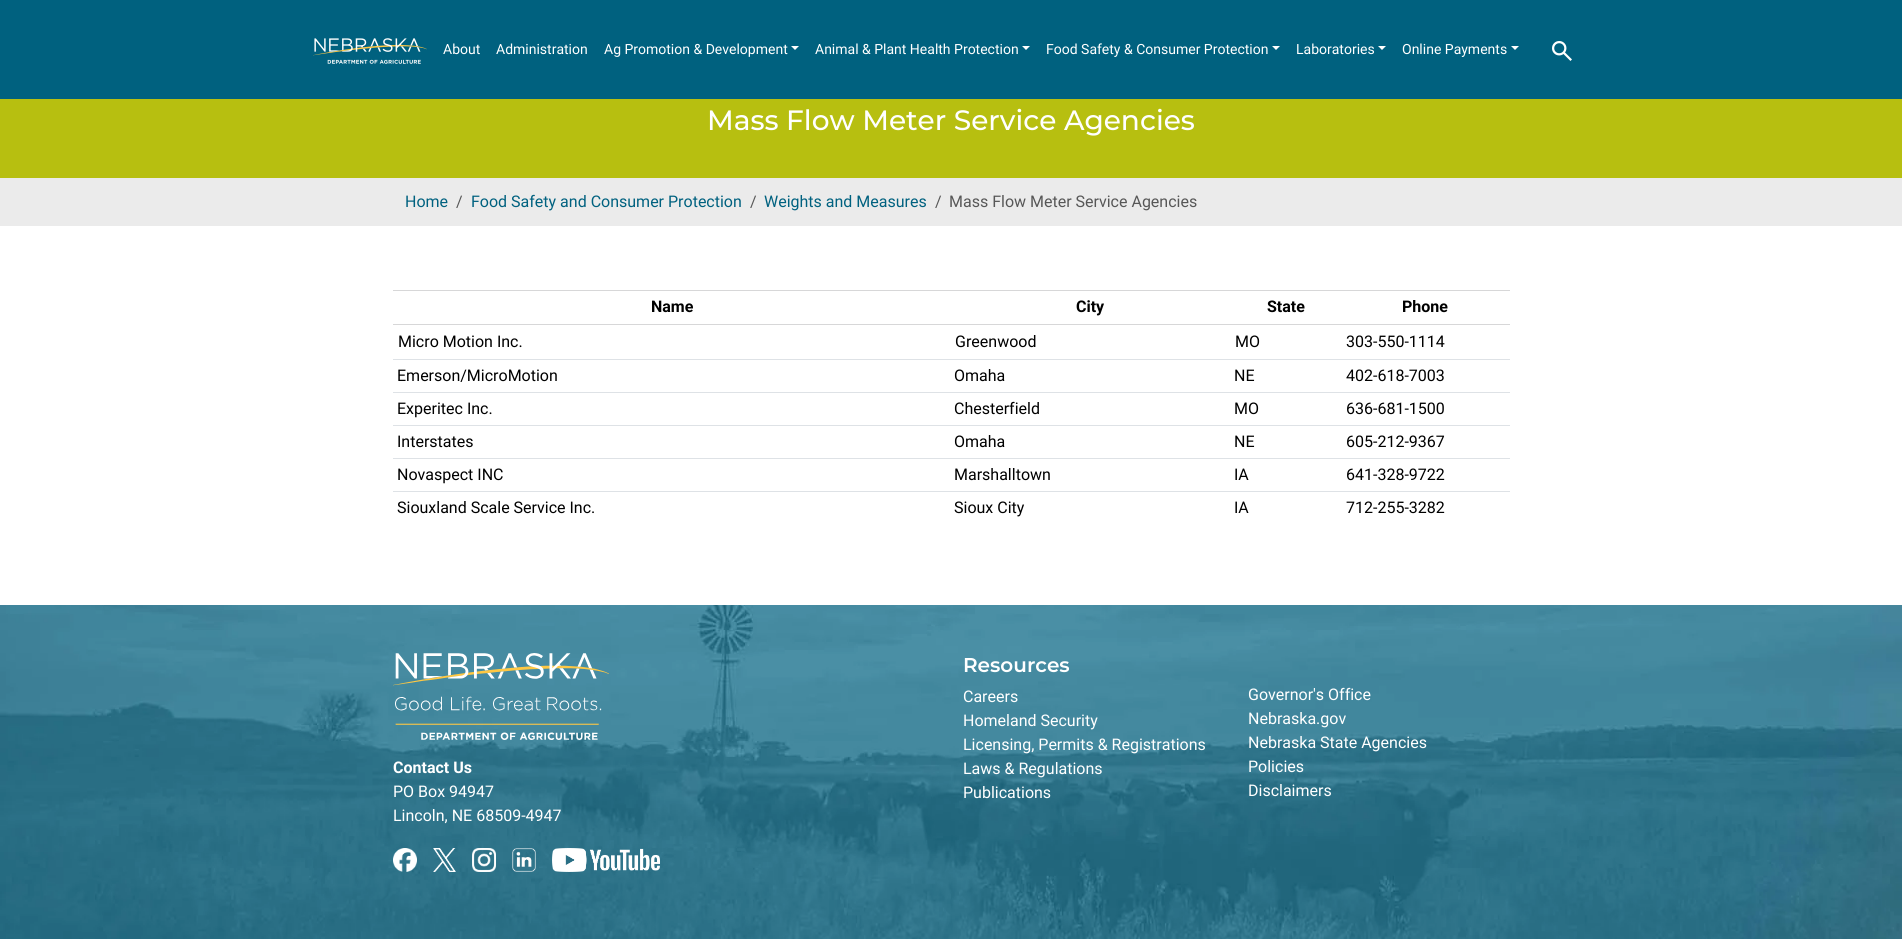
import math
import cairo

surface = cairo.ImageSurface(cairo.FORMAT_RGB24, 1902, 939)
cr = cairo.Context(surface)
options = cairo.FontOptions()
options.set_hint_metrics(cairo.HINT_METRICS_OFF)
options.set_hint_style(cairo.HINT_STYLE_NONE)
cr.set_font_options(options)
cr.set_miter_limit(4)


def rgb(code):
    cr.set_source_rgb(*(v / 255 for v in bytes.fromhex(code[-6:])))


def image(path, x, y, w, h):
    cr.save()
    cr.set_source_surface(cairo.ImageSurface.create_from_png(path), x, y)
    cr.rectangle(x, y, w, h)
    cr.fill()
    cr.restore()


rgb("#ffffff")
cr.paint()
rgb("#00617f")
cr.rectangle(0, 0, 1902, 99)
cr.fill()
image("img/1.png", 313, 38, 114, 26)
rgb("#ffffff")
cr.new_path()
cr.move_to(791, 46)
cr.line_to(799, 46)
cr.line_to(795, 50)
cr.close_path()
cr.fill()
cr.new_path()
cr.move_to(1022, 46)
cr.line_to(1030, 46)
cr.line_to(1026, 50)
cr.close_path()
cr.fill()
cr.new_path()
cr.move_to(1272, 46)
cr.line_to(1280, 46)
cr.line_to(1276, 50)
cr.close_path()
cr.fill()
cr.new_path()
cr.move_to(1378, 46)
cr.line_to(1386, 46)
cr.line_to(1382, 50)
cr.close_path()
cr.fill()
cr.new_path()
cr.move_to(1511, 46)
cr.line_to(1519, 46)
cr.line_to(1515, 50)
cr.close_path()
cr.fill()
image("img/2.png", 1552, 41, 20, 20)
for x, y, w, h, color in [
    (0, 99, 1902, 79, "#b7bf10"),
    (0, 178, 1902, 48, "#ebebeb"),
    (393, 324, 1117, 1, "#d7d7d8"),
    (393, 290, 1117, 1, "#d7d7d8"),
    (393, 359, 1117, 1, "#dee2e6"),
    (393, 392, 1117, 1, "#dee2e6"),
    (393, 425, 1117, 1, "#dee2e6"),
    (393, 458, 1117, 1, "#dee2e6"),
    (393, 491, 1117, 1, "#dee2e6"),
]:
    rgb(color)
    cr.rectangle(x, y, w, h)
    cr.fill()
image("img/3.png", 0, 605, 1902, 334)
image("img/4.png", 393, 653, 216, 87)
image("img/5.png", 393, 848, 24, 24)
image("img/6.png", 433, 848, 23, 24)
image("img/7.png", 472, 848, 24, 24)
image("img/8.png", 512, 848, 24, 24)
image("img/9.png", 552, 848, 108, 24)
cr.select_font_face("Roboto")
cr.set_font_size(14)
rgb("#ffffff")
for x, y, s in [
    (443, 54, "About"),
    (496, 54, "Administration"),
    (604, 54, "Ag Promotion & Development"),
    (815, 54, "Animal & Plant Health Protection"),
    (1046, 54, "Food Safety & Consumer Protection"),
    (1296, 54, "Laboratories"),
    (1402, 54, "Online Payments"),
]:
    cr.move_to(x, y)
    cr.show_text(s)
cr.select_font_face("Montserrat Medium")
cr.set_font_size(28)
cr.move_to(707, 130)
cr.show_text("Mass Flow Meter Service Agencies")
cr.select_font_face("Roboto")
cr.set_font_size(16)
rgb("#00617f")
cr.move_to(405, 207)
cr.show_text("Home")
rgb("#575757")
cr.move_to(456, 207)
cr.show_text("/")
rgb("#00617f")
cr.move_to(471, 207)
cr.show_text("Food Safety and Consumer Protection")
rgb("#575757")
cr.move_to(750, 207)
cr.show_text("/")
rgb("#00617f")
cr.move_to(764, 207)
cr.show_text("Weights and Measures")
rgb("#575757")
cr.move_to(935, 207)
cr.show_text("/")
cr.move_to(949, 207)
cr.show_text("Mass Flow Meter Service Agencies")
cr.select_font_face("Roboto", cairo.FONT_SLANT_NORMAL, cairo.FONT_WEIGHT_BOLD)
rgb("#000000")
for x, y, s in [
    (651, 312, "Name"),
    (1076, 312, "City"),
    (1267, 312, "State"),
    (1402, 312, "Phone"),
]:
    cr.move_to(x, y)
    cr.show_text(s)
cr.select_font_face("Roboto")
for x, y, s in [
    (398, 347, "Micro Motion Inc."),
    (955, 347, "Greenwood"),
    (1235, 347, "MO"),
    (1346, 347, "303-550-1114"),
    (397, 381, "Emerson/MicroMotion"),
    (954, 381, "Omaha"),
    (1234, 381, "NE"),
    (1346, 381, "402-618-7003"),
    (397, 414, "Experitec Inc."),
    (954, 414, "Chesterfield"),
    (1234, 414, "MO"),
    (1346, 414, "636-681-1500"),
    (397, 447, "Interstates"),
    (954, 447, "Omaha"),
    (1234, 447, "NE"),
    (1346, 447, "605-212-9367"),
    (397, 480, "Novaspect INC"),
    (954, 480, "Marshalltown"),
    (1234, 480, "IA"),
    (1346, 480, "641-328-9722"),
    (397, 513, "Siouxland Scale Service Inc."),
    (954, 513, "Sioux City"),
    (1234, 513, "IA"),
    (1346, 513, "712-255-3282"),
]:
    cr.move_to(x, y)
    cr.show_text(s)
cr.select_font_face("Roboto", cairo.FONT_SLANT_NORMAL, cairo.FONT_WEIGHT_BOLD)
rgb("#ffffff")
cr.move_to(393, 773)
cr.show_text("Contact Us")
cr.select_font_face("Roboto")
cr.move_to(393, 797)
cr.show_text("PO Box 94947")
cr.move_to(393, 821)
cr.show_text("Lincoln, NE 68509-4947")
cr.select_font_face("Montserrat SemiBold")
cr.set_font_size(20)
cr.move_to(963, 672)
cr.show_text("Resources")
cr.select_font_face("Roboto")
cr.set_font_size(16)
for x, y, s in [
    (963, 702, "Careers"),
    (963, 726, "Homeland Security"),
    (963, 750, "Licensing, Permits & Registrations"),
    (963, 774, "Laws & Regulations"),
    (963, 798, "Publications"),
    (1248, 700, "Governor's Office"),
    (1248, 724, "Nebraska.gov"),
    (1248, 748, "Nebraska State Agencies"),
    (1248, 772, "Policies"),
    (1248, 796, "Disclaimers"),
]:
    cr.move_to(x, y)
    cr.show_text(s)
surface.write_to_png("page.png")
